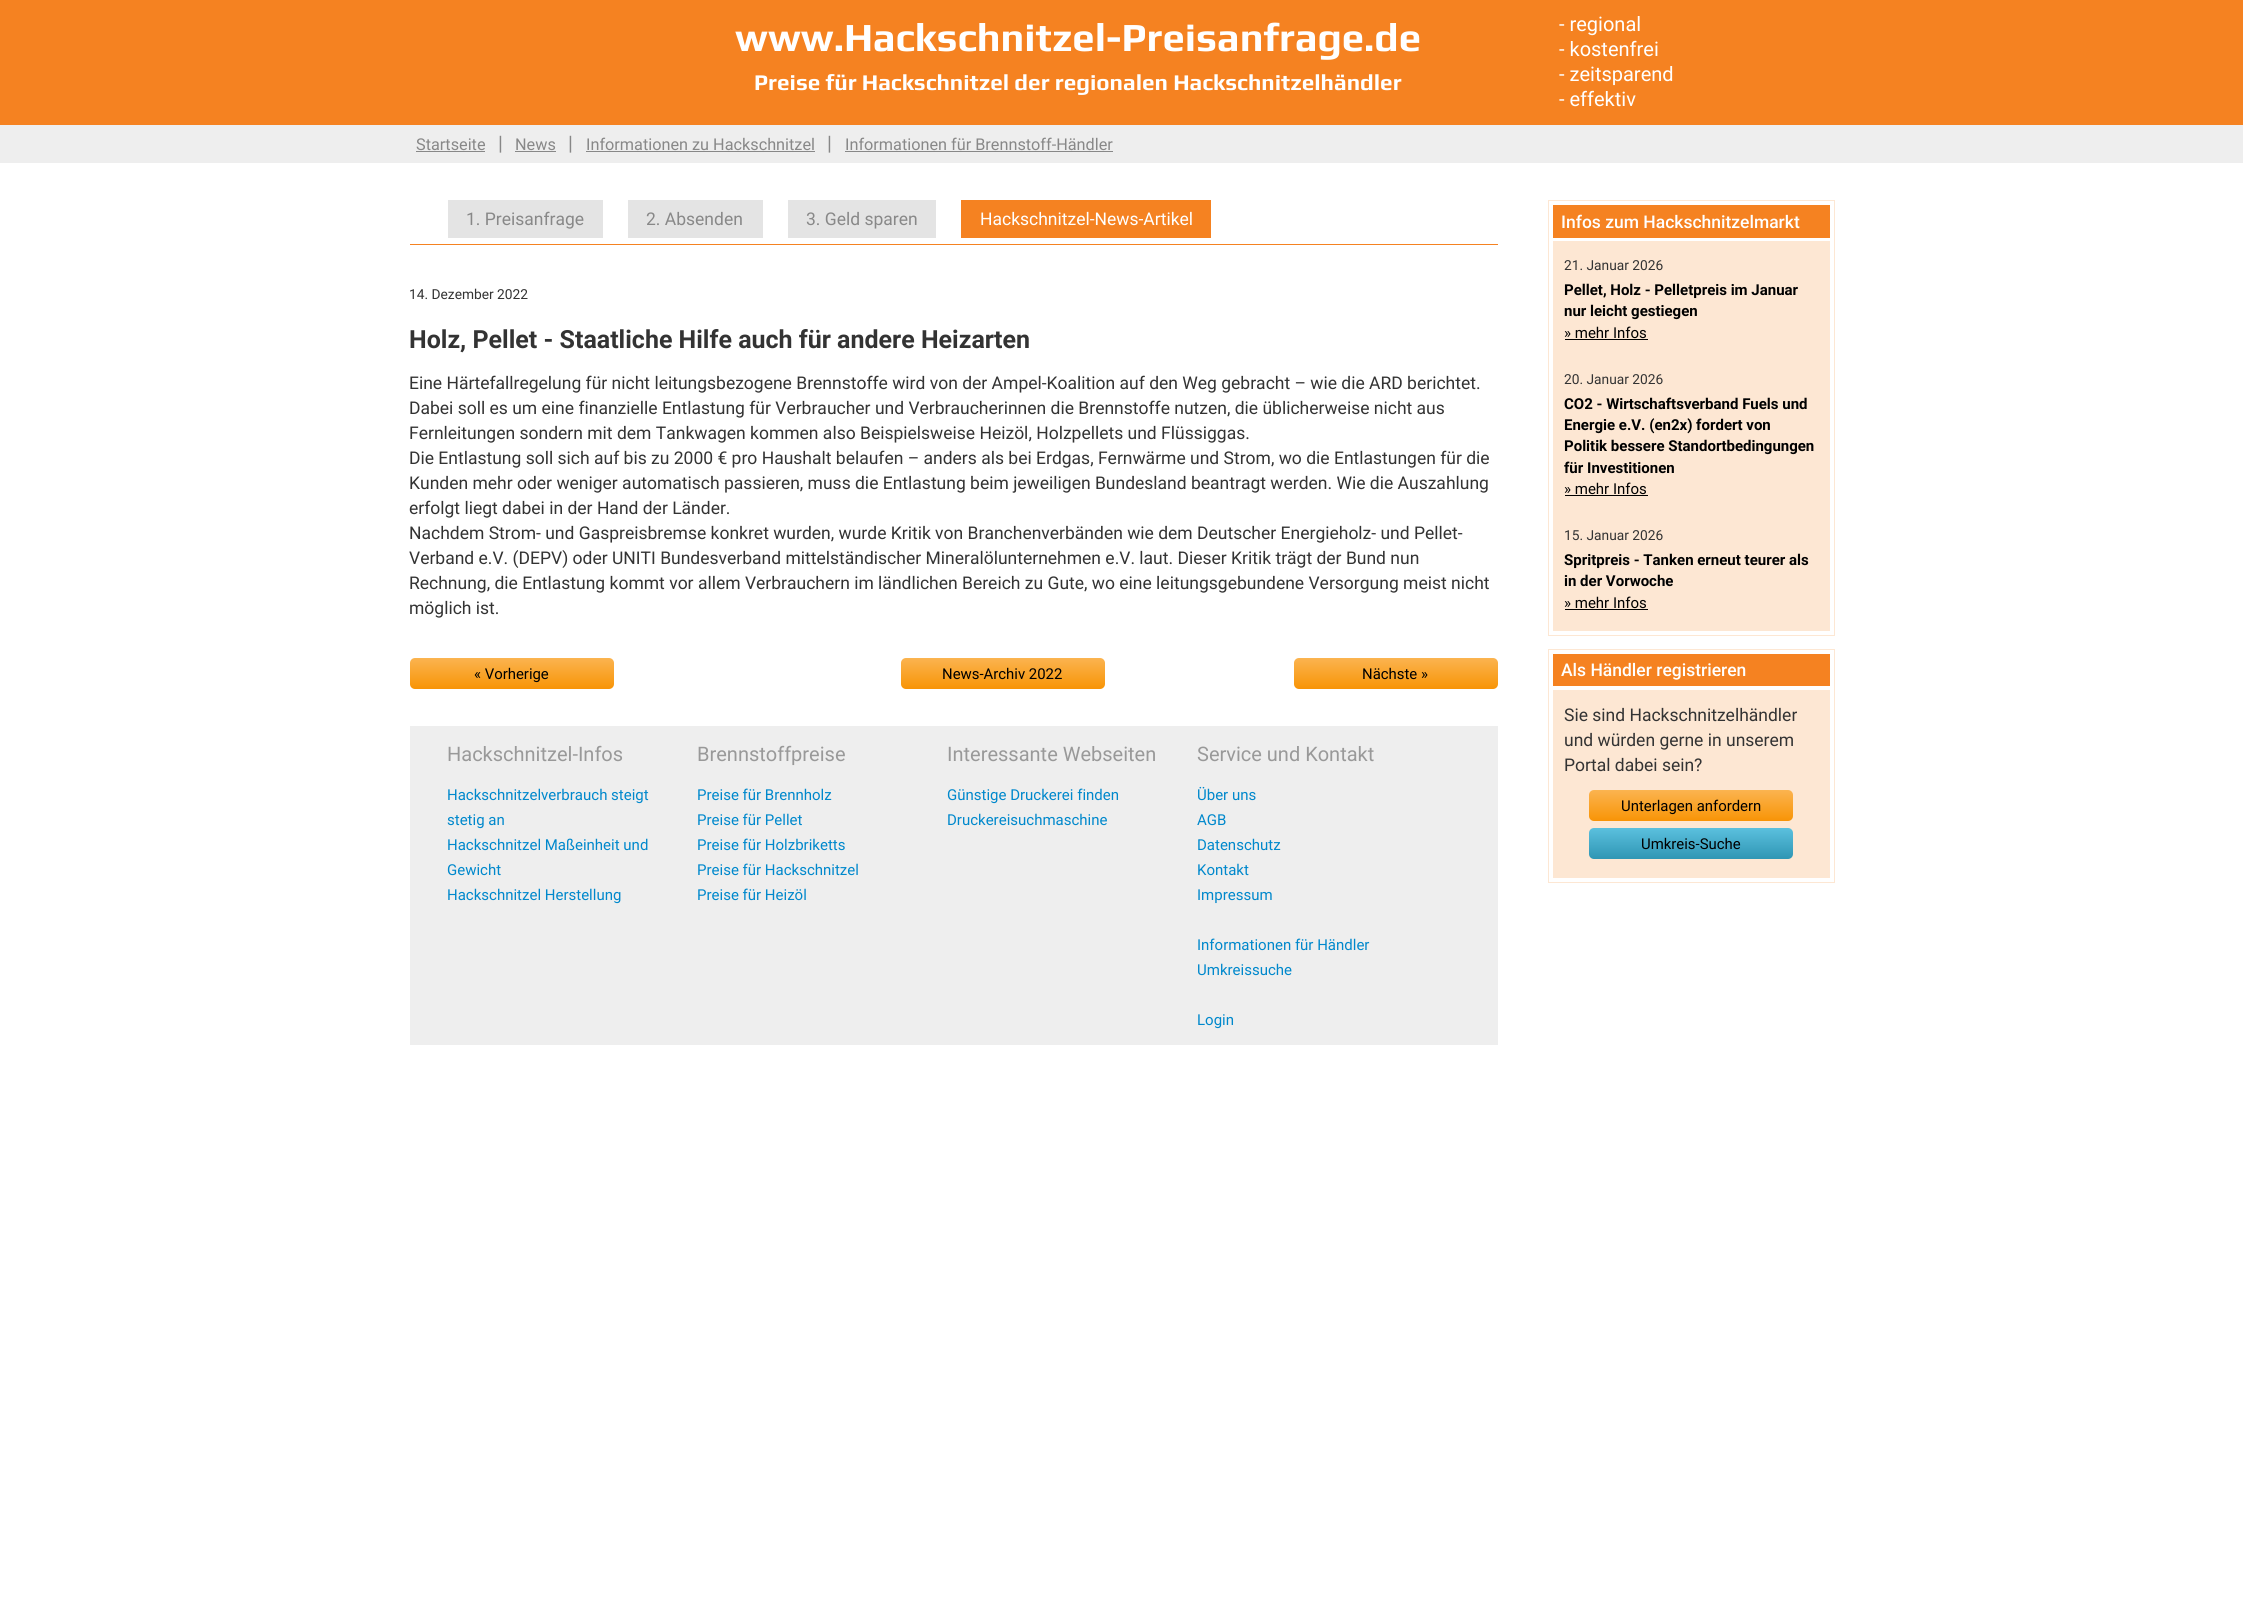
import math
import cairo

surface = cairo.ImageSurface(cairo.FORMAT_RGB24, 2243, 1599)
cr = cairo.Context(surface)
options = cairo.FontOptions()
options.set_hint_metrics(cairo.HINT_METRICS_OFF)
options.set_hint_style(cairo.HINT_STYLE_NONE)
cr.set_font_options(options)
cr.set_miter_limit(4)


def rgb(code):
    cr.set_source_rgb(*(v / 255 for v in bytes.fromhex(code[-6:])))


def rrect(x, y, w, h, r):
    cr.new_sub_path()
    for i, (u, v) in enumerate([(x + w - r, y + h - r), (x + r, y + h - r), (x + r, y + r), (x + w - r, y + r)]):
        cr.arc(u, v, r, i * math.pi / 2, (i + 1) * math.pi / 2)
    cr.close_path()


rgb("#ffffff")
cr.paint()
for x, y, w, h, color in [
    (0, 0, 2243, 125, "#f58221"),
    (0, 125, 2243, 38, "#eeeeee"),
    (416, 151, 69, 1, "#888888"),
    (515, 151, 41, 1, "#888888"),
    (586, 151, 229, 1, "#888888"),
    (845, 151, 268, 1, "#888888"),
    (410, 244, 1088, 1, "#f58221"),
    (448, 200, 155, 38, "#e4e4e4"),
    (628, 200, 135, 38, "#e4e4e4"),
    (788, 200, 148, 38, "#e4e4e4"),
    (961, 200, 250, 38, "#f58221"),
]:
    rgb(color)
    cr.rectangle(x, y, w, h)
    cr.fill()
gradient = cairo.LinearGradient(512, 658, 512, 689)
gradient.add_color_stop_rgba(0, 0.984, 0.706, 0.314, 1)
gradient.add_color_stop_rgba(1, 0.973, 0.58, 0.024, 1)
cr.set_source(gradient)
rrect(410, 658, 204, 31, 5)
cr.fill()
gradient = cairo.LinearGradient(1003, 658, 1003, 689)
gradient.add_color_stop_rgba(0, 0.984, 0.706, 0.314, 1)
gradient.add_color_stop_rgba(1, 0.973, 0.58, 0.024, 1)
cr.set_source(gradient)
rrect(901, 658, 204, 31, 5)
cr.fill()
gradient = cairo.LinearGradient(1396, 658, 1396, 689)
gradient.add_color_stop_rgba(0, 0.984, 0.706, 0.314, 1)
gradient.add_color_stop_rgba(1, 0.973, 0.58, 0.024, 1)
cr.set_source(gradient)
rrect(1294, 658, 204, 31, 5)
cr.fill()
cr.rectangle(1548.5, 200.5, 286, 435)
rgb("#fde7d3")
cr.set_line_width(1)
cr.stroke()
for x, y, w, h, color in [
    (1553, 205, 277, 33, "#f58221"),
    (1553, 241, 277, 390, "#fde7d3"),
    (1565, 339, 83, 1, "#000000"),
    (1565, 495, 83, 1, "#000000"),
    (1565, 609, 83, 1, "#000000"),
]:
    rgb(color)
    cr.rectangle(x, y, w, h)
    cr.fill()
cr.rectangle(1548.5, 649.5, 286, 233)
rgb("#fde7d3")
cr.stroke()
rgb("#f58221")
cr.rectangle(1553, 654, 277, 32)
cr.fill()
rgb("#fde7d3")
cr.rectangle(1553, 690, 277, 188)
cr.fill()
gradient = cairo.LinearGradient(1691, 790, 1691, 821)
gradient.add_color_stop_rgba(0, 0.984, 0.706, 0.314, 1)
gradient.add_color_stop_rgba(1, 0.973, 0.58, 0.024, 1)
cr.set_source(gradient)
rrect(1589, 790, 204, 31, 5)
cr.fill()
gradient = cairo.LinearGradient(1691, 828, 1691, 859)
gradient.add_color_stop_rgba(0, 0.357, 0.753, 0.871, 1)
gradient.add_color_stop_rgba(1, 0.184, 0.588, 0.706, 1)
cr.set_source(gradient)
rrect(1589, 828, 204, 31, 5)
cr.fill()
rgb("#eeeeee")
cr.rectangle(410, 726, 1088, 319)
cr.fill()
cr.select_font_face("Play", cairo.FONT_SLANT_NORMAL, cairo.FONT_WEIGHT_BOLD)
cr.set_font_size(40)
rgb("#ffffff")
cr.move_to(735, 51)
cr.show_text("www.Hackschnitzel-Preisanfrage.de")
cr.set_font_size(22.5)
cr.move_to(754, 90)
cr.show_text("Preise für Hackschnitzel der regionalen Hackschnitzelhändler")
cr.select_font_face("Roboto")
cr.set_font_size(20)
for x, y, s in [
    (1559, 31, "- regional"),
    (1559, 56, "- kostenfrei"),
    (1559, 81, "- zeitsparend"),
    (1559, 106, "- effektiv"),
]:
    cr.move_to(x, y)
    cr.show_text(s)
cr.set_font_size(16.25)
rgb("#888888")
cr.move_to(416, 150)
cr.show_text("Startseite")
cr.set_font_size(20)
cr.move_to(498, 150)
cr.show_text("|")
cr.set_font_size(16.25)
cr.move_to(515, 150)
cr.show_text("News")
cr.set_font_size(20)
cr.move_to(568, 150)
cr.show_text("|")
cr.set_font_size(16.25)
cr.move_to(586, 150)
cr.show_text("Informationen zu Hackschnitzel")
cr.set_font_size(20)
cr.move_to(827, 150)
cr.show_text("|")
cr.set_font_size(16.25)
cr.move_to(845, 150)
cr.show_text("Informationen für Brennstoff-Händler")
cr.set_font_size(17.5)
for x, y, s in [
    (466, 225, "1. Preisanfrage"),
    (646, 225, "2. Absenden"),
    (806, 225, "3. Geld sparen"),
]:
    cr.move_to(x, y)
    cr.show_text(s)
rgb("#ffffff")
cr.move_to(980, 225)
cr.show_text("Hackschnitzel-News-Artikel")
cr.set_font_size(13.75)
rgb("#333333")
cr.move_to(409, 299)
cr.show_text("14. Dezember 2022")
cr.select_font_face("Roboto", cairo.FONT_SLANT_NORMAL, cairo.FONT_WEIGHT_BOLD)
cr.set_font_size(25)
cr.move_to(409, 348)
cr.show_text("Holz, Pellet - Staatliche Hilfe auch für andere Heizarten")
cr.select_font_face("Roboto")
cr.set_font_size(17.5)
for x, y, s in [
    (409, 389, "Eine Härtefallregelung für nicht leitungsbezogene Brennstoffe wird von der Ampel-Koalition auf den Weg gebracht – wie die ARD berichtet."),
    (409, 414, "Dabei soll es um eine finanzielle Entlastung für Verbraucher und Verbraucherinnen die Brennstoffe nutzen, die üblicherweise nicht aus"),
    (409, 439, "Fernleitungen sondern mit dem Tankwagen kommen also Beispielsweise Heizöl, Holzpellets und Flüssiggas."),
    (409, 464, "Die Entlastung soll sich auf bis zu 2000 € pro Haushalt belaufen – anders als bei Erdgas, Fernwärme und Strom, wo die Entlastungen für die"),
    (409, 489, "Kunden mehr oder weniger automatisch passieren, muss die Entlastung beim jeweiligen Bundesland beantragt werden. Wie die Auszahlung"),
    (409, 514, "erfolgt liegt dabei in der Hand der Länder."),
    (409, 539, "Nachdem Strom- und Gaspreisbremse konkret wurden, wurde Kritik von Branchenverbänden wie dem Deutscher Energieholz- und Pellet-"),
    (409, 564, "Verband e.V. (DEPV) oder UNITI Bundesverband mittelständischer Mineralölunternehmen e.V. laut. Dieser Kritik trägt der Bund nun"),
    (409, 589, "Rechnung, die Entlastung kommt vor allem Verbrauchern im ländlichen Bereich zu Gute, wo eine leitungsgebundene Versorgung meist nicht"),
    (409, 614, "möglich ist."),
]:
    cr.move_to(x, y)
    cr.show_text(s)
cr.set_font_size(14.9)
rgb("#000000")
for x, y, s in [
    (474, 679, "« Vorherige"),
    (942, 679, "News-Archiv 2022"),
    (1362, 679, "Nächste »"),
]:
    cr.move_to(x, y)
    cr.show_text(s)
cr.select_font_face("Roboto Medium")
cr.set_font_size(17.5)
rgb("#ffffff")
cr.move_to(1561, 228)
cr.show_text("Infos zum Hackschnitzelmarkt")
cr.select_font_face("Roboto")
cr.set_font_size(13.75)
rgb("#333333")
cr.move_to(1564, 270)
cr.show_text("21. Januar 2026")
cr.select_font_face("Roboto", cairo.FONT_SLANT_NORMAL, cairo.FONT_WEIGHT_BOLD)
cr.set_font_size(15)
rgb("#000000")
cr.move_to(1564, 295)
cr.show_text("Pellet, Holz - Pelletpreis im Januar")
cr.move_to(1564, 316)
cr.show_text("nur leicht gestiegen")
cr.select_font_face("Roboto")
cr.move_to(1564, 338)
cr.show_text("» mehr Infos")
cr.set_font_size(13.75)
rgb("#333333")
cr.move_to(1564, 384)
cr.show_text("20. Januar 2026")
cr.select_font_face("Roboto", cairo.FONT_SLANT_NORMAL, cairo.FONT_WEIGHT_BOLD)
cr.set_font_size(15)
rgb("#000000")
for x, y, s in [
    (1564, 409, "CO2 - Wirtschaftsverband Fuels und"),
    (1564, 430, "Energie e.V. (en2x) fordert von"),
    (1564, 451, "Politik bessere Standortbedingungen"),
    (1564, 473, "für Investitionen"),
]:
    cr.move_to(x, y)
    cr.show_text(s)
cr.select_font_face("Roboto")
cr.move_to(1564, 494)
cr.show_text("» mehr Infos")
cr.set_font_size(13.75)
rgb("#333333")
cr.move_to(1564, 540)
cr.show_text("15. Januar 2026")
cr.select_font_face("Roboto", cairo.FONT_SLANT_NORMAL, cairo.FONT_WEIGHT_BOLD)
cr.set_font_size(15)
rgb("#000000")
cr.move_to(1564, 565)
cr.show_text("Spritpreis - Tanken erneut teurer als")
cr.move_to(1564, 586)
cr.show_text("in der Vorwoche")
cr.select_font_face("Roboto")
cr.move_to(1564, 608)
cr.show_text("» mehr Infos")
cr.select_font_face("Roboto Medium")
cr.set_font_size(17.5)
rgb("#ffffff")
cr.move_to(1561, 676)
cr.show_text("Als Händler registrieren")
cr.select_font_face("Roboto")
rgb("#333333")
for x, y, s in [
    (1564, 721, "Sie sind Hackschnitzelhändler"),
    (1564, 746, "und würden gerne in unserem"),
    (1564, 771, "Portal dabei sein?"),
]:
    cr.move_to(x, y)
    cr.show_text(s)
cr.set_font_size(14.9)
rgb("#000000")
cr.move_to(1621, 811)
cr.show_text("Unterlagen anfordern")
cr.move_to(1641, 849)
cr.show_text("Umkreis-Suche")
cr.set_font_size(20)
rgb("#999999")
cr.move_to(447, 761)
cr.show_text("Hackschnitzel-Infos")
cr.set_font_size(15)
rgb("#0088cc")
for x, y, s in [
    (447, 800, "Hackschnitzelverbrauch steigt"),
    (447, 825, "stetig an"),
    (447, 850, "Hackschnitzel Maßeinheit und"),
    (447, 875, "Gewicht"),
    (447, 900, "Hackschnitzel Herstellung"),
]:
    cr.move_to(x, y)
    cr.show_text(s)
cr.set_font_size(20)
rgb("#999999")
cr.move_to(697, 761)
cr.show_text("Brennstoffpreise")
cr.set_font_size(15)
rgb("#0088cc")
for x, y, s in [
    (697, 800, "Preise für Brennholz"),
    (697, 825, "Preise für Pellet"),
    (697, 850, "Preise für Holzbriketts"),
    (697, 875, "Preise für Hackschnitzel"),
    (697, 900, "Preise für Heizöl"),
]:
    cr.move_to(x, y)
    cr.show_text(s)
cr.set_font_size(20)
rgb("#999999")
cr.move_to(947, 761)
cr.show_text("Interessante Webseiten")
cr.set_font_size(15)
rgb("#0088cc")
cr.move_to(947, 800)
cr.show_text("Günstige Druckerei finden")
cr.move_to(947, 825)
cr.show_text("Druckereisuchmaschine")
cr.set_font_size(20)
rgb("#999999")
cr.move_to(1197, 761)
cr.show_text("Service und Kontakt")
cr.set_font_size(15)
rgb("#0088cc")
for x, y, s in [
    (1197, 800, "Über uns"),
    (1197, 825, "AGB"),
    (1197, 850, "Datenschutz"),
    (1197, 875, "Kontakt"),
    (1197, 900, "Impressum"),
    (1197, 950, "Informationen für Händler"),
    (1197, 975, "Umkreissuche"),
    (1197, 1025, "Login"),
]:
    cr.move_to(x, y)
    cr.show_text(s)
surface.write_to_png("page.png")
